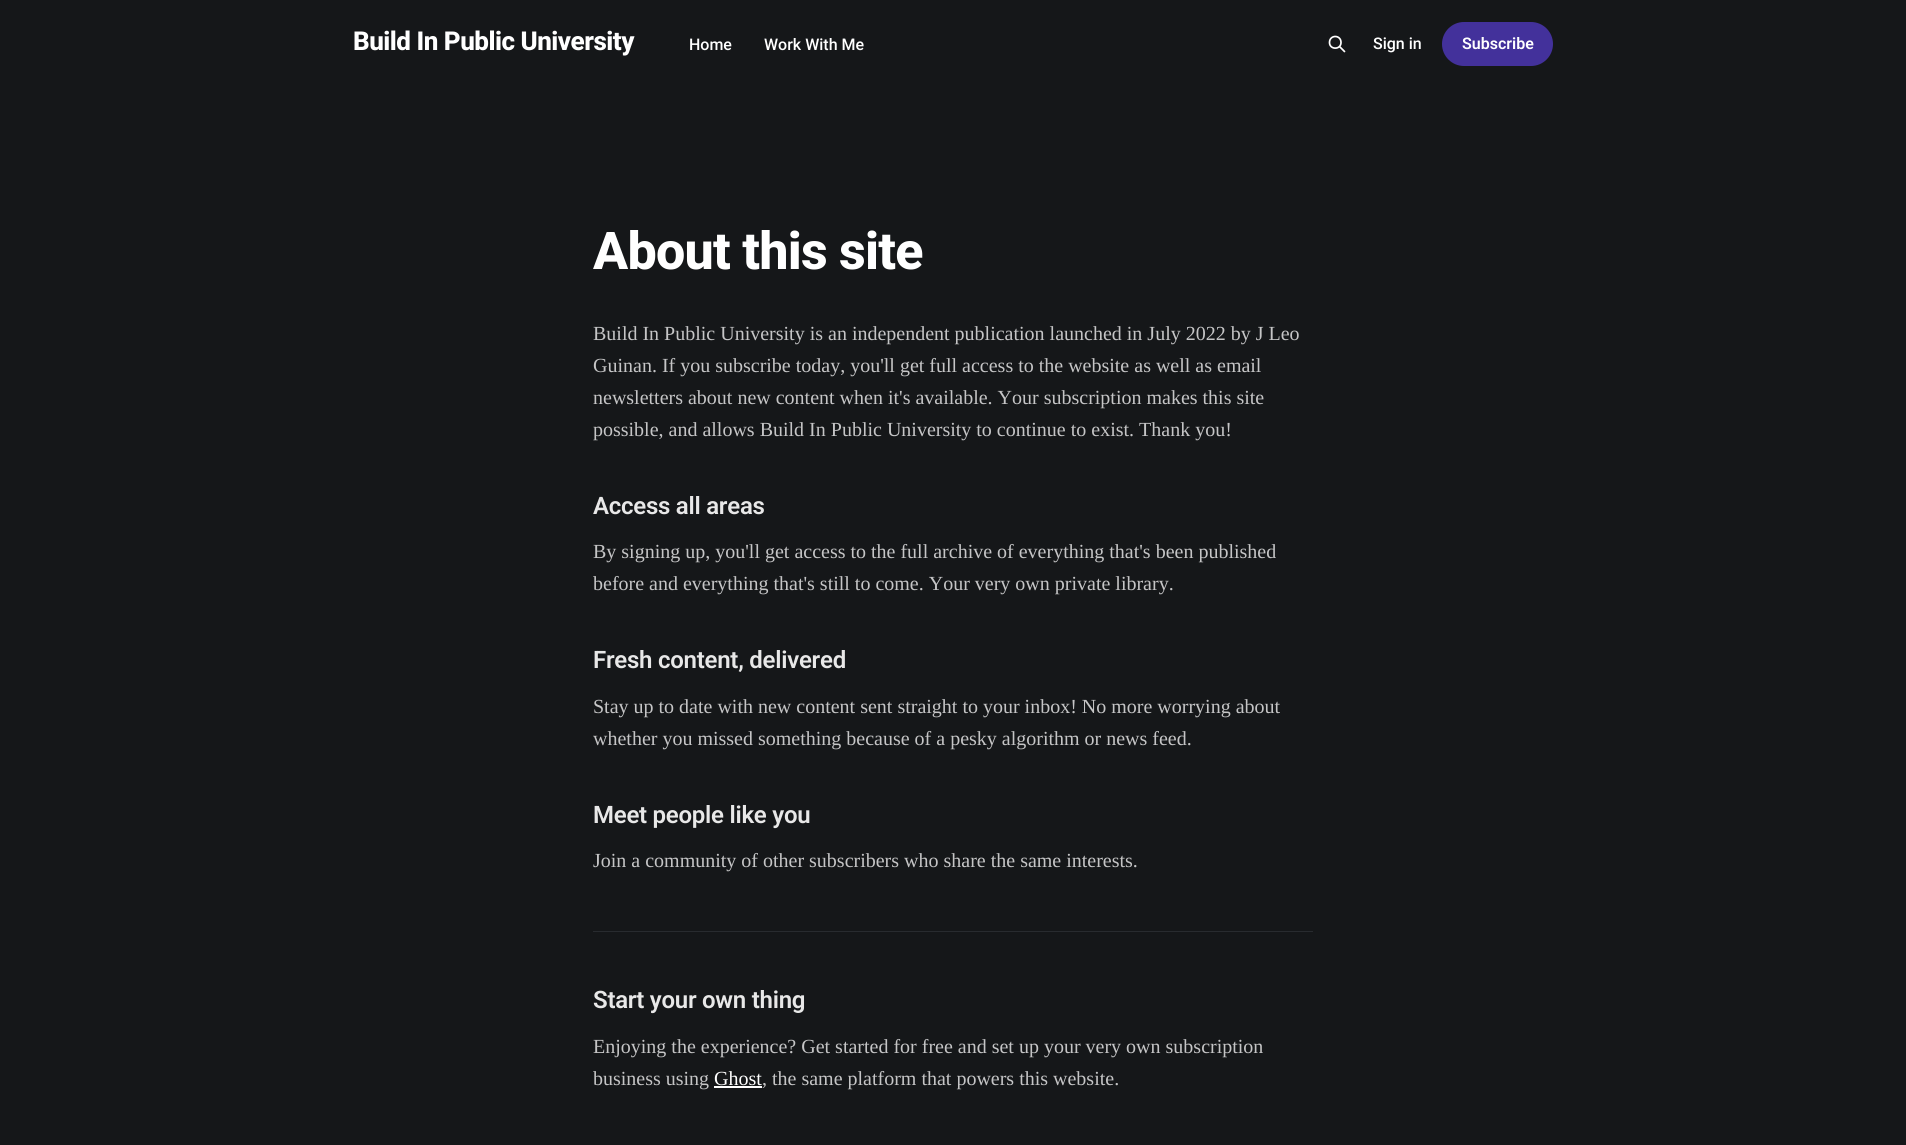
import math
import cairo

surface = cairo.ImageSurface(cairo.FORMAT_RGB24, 1906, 1145)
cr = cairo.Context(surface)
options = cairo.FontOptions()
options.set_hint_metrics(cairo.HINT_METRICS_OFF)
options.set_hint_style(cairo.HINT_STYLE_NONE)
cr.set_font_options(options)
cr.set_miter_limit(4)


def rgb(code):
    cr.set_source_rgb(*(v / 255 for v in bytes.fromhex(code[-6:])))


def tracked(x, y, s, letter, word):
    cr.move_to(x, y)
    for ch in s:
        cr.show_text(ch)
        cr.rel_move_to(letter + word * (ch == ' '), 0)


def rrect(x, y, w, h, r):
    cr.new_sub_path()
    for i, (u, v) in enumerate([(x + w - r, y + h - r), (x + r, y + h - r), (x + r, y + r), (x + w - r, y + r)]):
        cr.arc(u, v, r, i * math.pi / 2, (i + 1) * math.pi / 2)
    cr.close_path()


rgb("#151719")
cr.paint()
cr.new_path()
cr.move_to(1344.5, 51.5)
cr.line_to(1339.5, 46.5)
cr.move_to(1341, 42.5)
cr.curve_to(1341, 50, 1329.5, 50, 1329.5, 42.5)
cr.curve_to(1329.5, 34.5, 1341, 34.5, 1341, 42.5)
cr.close_path()
rgb("#ffffff")
cr.set_line_width(1.7)
cr.set_line_cap(cairo.LINE_CAP_ROUND)
cr.set_line_join(cairo.LINE_JOIN_ROUND)
cr.stroke()
rgb("#43319b")
rrect(1442, 22, 111, 44, 22)
cr.fill()
rgb("#282b2f")
cr.rectangle(593, 931, 720, 1)
cr.fill()
rgb("#ffffff")
cr.rectangle(714, 1086, 48, 2)
cr.fill()
cr.select_font_face("Roboto ExtraBold")
cr.set_font_size(26)
tracked(353, 50, "Build In Public University", -0.5, 0)
cr.select_font_face("Roboto Medium")
cr.set_font_size(16)
for x, y, s in [
    (689, 50, "Home"),
    (764, 50, "Work With Me"),
    (1373, 49, "Sign in"),
]:
    cr.move_to(x, y)
    cr.show_text(s)
cr.select_font_face("Roboto SemiBold")
cr.move_to(1462, 49)
cr.show_text("Subscribe")
cr.select_font_face("Roboto ExtraBold")
cr.set_font_size(52)
tracked(593, 269, "About this site", -0.75, 0)
cr.select_font_face("Liberation Serif")
cr.set_font_size(20)
rgb("#c5c5c6")
for x, y, s in [
    (593, 340, "Build In Public University is an independent publication launched in July 2022 by J Leo"),
    (593, 372, "Guinan. If you subscribe today, you'll get full access to the website as well as email"),
    (593, 404, "newsletters about new content when it's available. Your subscription makes this site"),
    (593, 436, "possible, and allows Build In Public University to continue to exist. Thank you!"),
]:
    cr.move_to(x, y)
    cr.show_text(s)
cr.select_font_face("Roboto SemiBold")
cr.set_font_size(24)
rgb("#e8e8e8")
tracked(593, 514, "Access all areas", -0.25, 0)
cr.select_font_face("Liberation Serif")
cr.set_font_size(20)
rgb("#c5c5c6")
cr.move_to(593, 558)
cr.show_text("By signing up, you'll get access to the full archive of everything that's been published")
cr.move_to(593, 590)
cr.show_text("before and everything that's still to come. Your very own private library.")
cr.select_font_face("Roboto SemiBold")
cr.set_font_size(24)
rgb("#e8e8e8")
tracked(593, 668, "Fresh content, delivered", -0.25, 0)
cr.select_font_face("Liberation Serif")
cr.set_font_size(20)
rgb("#c5c5c6")
cr.move_to(593, 713)
cr.show_text("Stay up to date with new content sent straight to your inbox! No more worrying about")
cr.move_to(593, 745)
cr.show_text("whether you missed something because of a pesky algorithm or news feed.")
cr.select_font_face("Roboto SemiBold")
cr.set_font_size(24)
rgb("#e8e8e8")
tracked(593, 823, "Meet people like you", -0.25, 0)
cr.select_font_face("Liberation Serif")
cr.set_font_size(20)
rgb("#c5c5c6")
cr.move_to(593, 867)
cr.show_text("Join a community of other subscribers who share the same interests.")
cr.select_font_face("Roboto SemiBold")
cr.set_font_size(24)
rgb("#e8e8e8")
tracked(593, 1008, "Start your own thing", -0.25, 0)
cr.select_font_face("Liberation Serif")
cr.set_font_size(20)
rgb("#c5c5c6")
cr.move_to(593, 1053)
cr.show_text("Enjoying the experience? Get started for free and set up your very own subscription")
cr.move_to(593, 1085)
cr.show_text("business using")
rgb("#ffffff")
cr.move_to(714, 1085)
cr.show_text("Ghost")
rgb("#c5c5c6")
cr.move_to(762, 1085)
cr.show_text(", the same platform that powers this website.")
surface.write_to_png("page.png")
